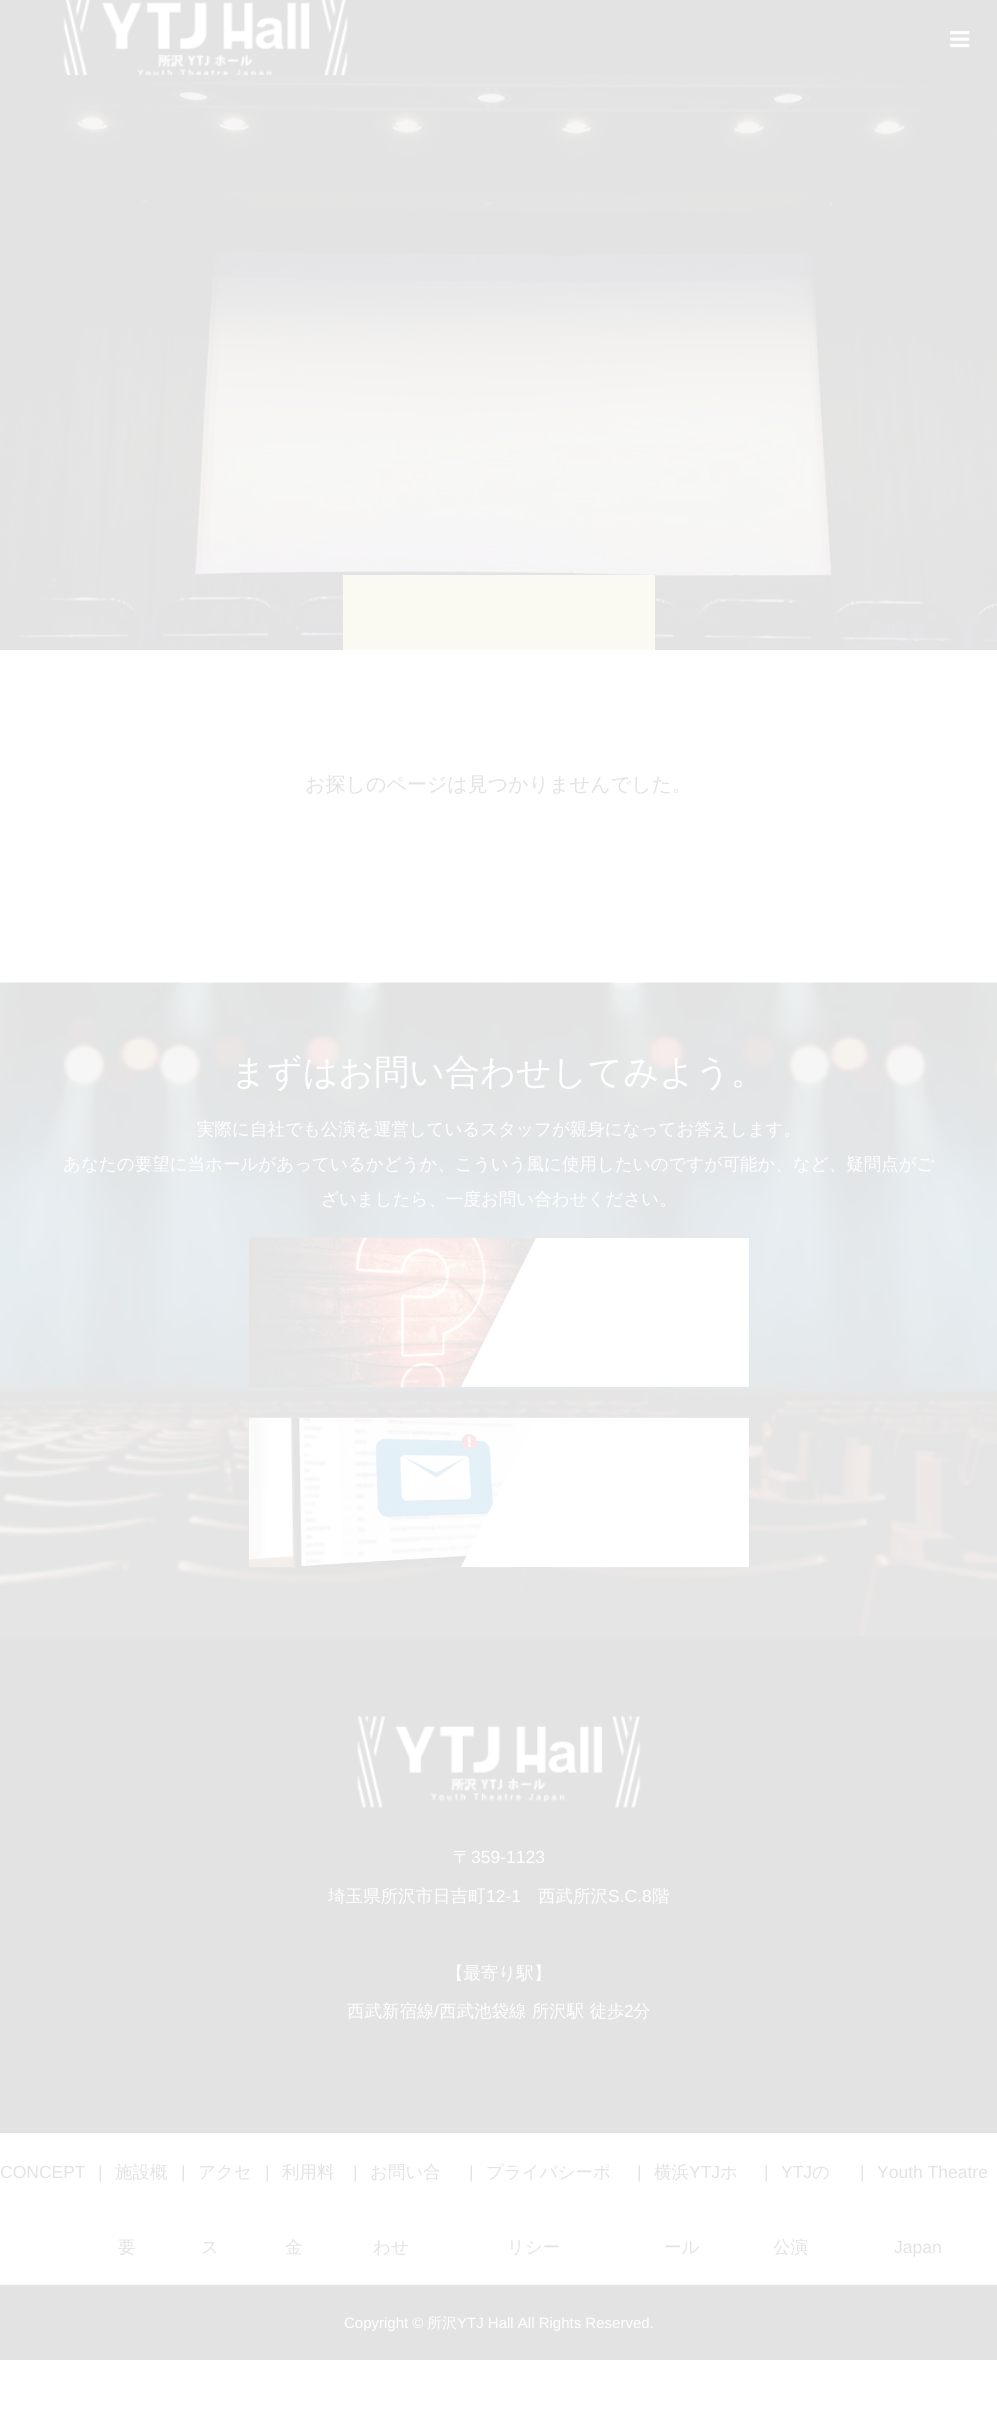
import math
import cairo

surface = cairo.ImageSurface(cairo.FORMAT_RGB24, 997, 2433)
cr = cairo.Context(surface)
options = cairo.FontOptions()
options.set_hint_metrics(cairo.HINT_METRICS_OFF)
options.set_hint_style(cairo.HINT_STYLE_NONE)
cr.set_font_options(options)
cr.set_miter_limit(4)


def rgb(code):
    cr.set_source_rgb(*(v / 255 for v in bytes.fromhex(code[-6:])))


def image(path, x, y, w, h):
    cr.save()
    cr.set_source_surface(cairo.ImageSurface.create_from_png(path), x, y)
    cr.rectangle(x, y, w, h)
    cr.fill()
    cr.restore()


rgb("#ffffff")
cr.paint()
rgb("#e3e3e3")
cr.rectangle(0, 0, 997, 75)
cr.fill()
image("img/1.png", 63, 0, 285, 75)
image("img/2.png", 950, 31, 20, 17)
image("img/3.png", 0, 75, 997, 575)
rgb("#faf9f2")
cr.rectangle(343, 575, 312, 75)
cr.fill()
rgb("#e4e3e3")
cr.rectangle(0, 1636, 997, 497)
cr.fill()
image("img/4.png", 0, 982, 997, 655)
image("img/5.png", 248, 1237, 501, 151)
rgb("#ffffff")
cr.new_path()
cr.move_to(461, 1387)
cr.line_to(749, 1387)
cr.line_to(749, 1238)
cr.line_to(536, 1238)
cr.close_path()
cr.fill()
image("img/6.png", 248, 1417, 501, 151)
cr.new_path()
cr.move_to(461, 1567)
cr.line_to(749, 1567)
cr.line_to(749, 1418)
cr.line_to(536, 1418)
cr.close_path()
cr.fill()
rgb("#fbfbfb")
cr.rectangle(0, 2133, 997, 1)
cr.fill()
image("img/7.png", 357, 1716, 284, 92)
cr.rectangle(0, 2284, 997, 1)
cr.fill()
rgb("#e3e3e3")
cr.rectangle(0, 2285, 997, 75)
cr.fill()
cr.select_font_face("WenQuanYi Zen Hei Medium")
cr.set_font_size(20)
cr.move_to(305, 791)
cr.show_text("お探しのページは見つかりませんでした。")
cr.set_font_size(35)
rgb("#ffffff")
cr.move_to(231, 1084)
cr.show_text("まずはお問い合わせしてみよう。")
cr.set_font_size(17.5)
for x, y, s in [
    (197, 1135, "実際に自社でも公演を運営しているスタッフが親身になってお答えします。"),
    (63, 1170, "あなたの要望に当ホールがあっているかどうか、こういう風に使用したいのですが可能か、など、疑問点がご"),
    (321, 1205, "ざいましたら、一度お問い合わせください。"),
    (453, 1863, "〒"),
]:
    cr.move_to(x, y)
    cr.show_text(s)
cr.select_font_face("Liberation Sans")
cr.move_to(471, 1863)
cr.show_text("359-1123")
cr.select_font_face("WenQuanYi Zen Hei Medium")
cr.move_to(328, 1902)
cr.show_text("埼玉県所沢市日吉町")
cr.select_font_face("Liberation Sans")
cr.move_to(486, 1902)
cr.show_text("12-1")
cr.select_font_face("WenQuanYi Zen Hei Medium")
cr.move_to(538, 1902)
cr.show_text("西武所沢")
cr.select_font_face("Liberation Sans")
cr.move_to(608, 1902)
cr.show_text("S.C.8")
cr.select_font_face("WenQuanYi Zen Hei Medium")
for x, y, s in [
    (652, 1902, "階"),
    (446, 1979, "【最寄り駅】"),
    (347, 2017, "西武新宿線"),
]:
    cr.move_to(x, y)
    cr.show_text(s)
cr.select_font_face("Liberation Sans")
cr.move_to(434, 2017)
cr.show_text("/")
cr.select_font_face("WenQuanYi Zen Hei Medium")
cr.move_to(439, 2017)
cr.show_text("西武池袋線 所沢駅 徒歩")
cr.select_font_face("Liberation Sans")
cr.move_to(624, 2017)
cr.show_text("2")
cr.select_font_face("WenQuanYi Zen Hei Medium")
cr.move_to(633, 2017)
cr.show_text("分")
cr.select_font_face("Liberation Sans")
rgb("#e3e3e3")
cr.move_to(0, 2178)
cr.show_text("CONCEPT")
cr.move_to(98, 2178)
cr.show_text("|")
cr.select_font_face("WenQuanYi Zen Hei Medium")
cr.move_to(115, 2178)
cr.show_text("施設概")
cr.move_to(118, 2253)
cr.show_text("要")
cr.select_font_face("Liberation Sans")
cr.move_to(181, 2178)
cr.show_text("|")
cr.select_font_face("WenQuanYi Zen Hei Medium")
cr.move_to(198, 2178)
cr.show_text("アクセ")
cr.move_to(201, 2253)
cr.show_text("ス")
cr.select_font_face("Liberation Sans")
cr.move_to(265, 2178)
cr.show_text("|")
cr.select_font_face("WenQuanYi Zen Hei Medium")
cr.move_to(282, 2178)
cr.show_text("利用料")
cr.move_to(285, 2253)
cr.show_text("金")
cr.select_font_face("Liberation Sans")
cr.move_to(353, 2178)
cr.show_text("|")
cr.select_font_face("WenQuanYi Zen Hei Medium")
cr.move_to(370, 2178)
cr.show_text("お問い合")
cr.move_to(373, 2253)
cr.show_text("わせ")
cr.select_font_face("Liberation Sans")
cr.move_to(469, 2178)
cr.show_text("|")
cr.select_font_face("WenQuanYi Zen Hei Medium")
cr.move_to(486, 2178)
cr.show_text("プライバシーポ")
cr.move_to(507, 2253)
cr.show_text("リシー")
cr.select_font_face("Liberation Sans")
cr.move_to(637, 2178)
cr.show_text("|")
cr.select_font_face("WenQuanYi Zen Hei Medium")
cr.move_to(654, 2178)
cr.show_text("横浜")
cr.select_font_face("Liberation Sans")
cr.move_to(689, 2178)
cr.show_text("YTJ")
cr.select_font_face("WenQuanYi Zen Hei Medium")
cr.move_to(720, 2178)
cr.show_text("ホ")
cr.move_to(664, 2253)
cr.show_text("ール")
cr.select_font_face("Liberation Sans")
cr.move_to(764, 2178)
cr.show_text("|")
cr.move_to(781, 2178)
cr.show_text("YTJ")
cr.select_font_face("WenQuanYi Zen Hei Medium")
cr.move_to(812, 2178)
cr.show_text("の")
cr.move_to(773, 2253)
cr.show_text("公演")
cr.select_font_face("Liberation Sans")
for x, y, s in [
    (860, 2178, "|"),
    (877, 2178, "Youth Theatre"),
    (894, 2253, "Japan"),
]:
    cr.move_to(x, y)
    cr.show_text(s)
cr.set_font_size(15)
rgb("#ffffff")
cr.move_to(344, 2328)
cr.show_text("Copyright ©")
cr.select_font_face("WenQuanYi Zen Hei Medium")
cr.move_to(427, 2328)
cr.show_text("所沢")
cr.select_font_face("Liberation Sans")
cr.move_to(457, 2328)
cr.show_text("YTJ Hall All Rights Reserved.")
surface.write_to_png("page.png")
